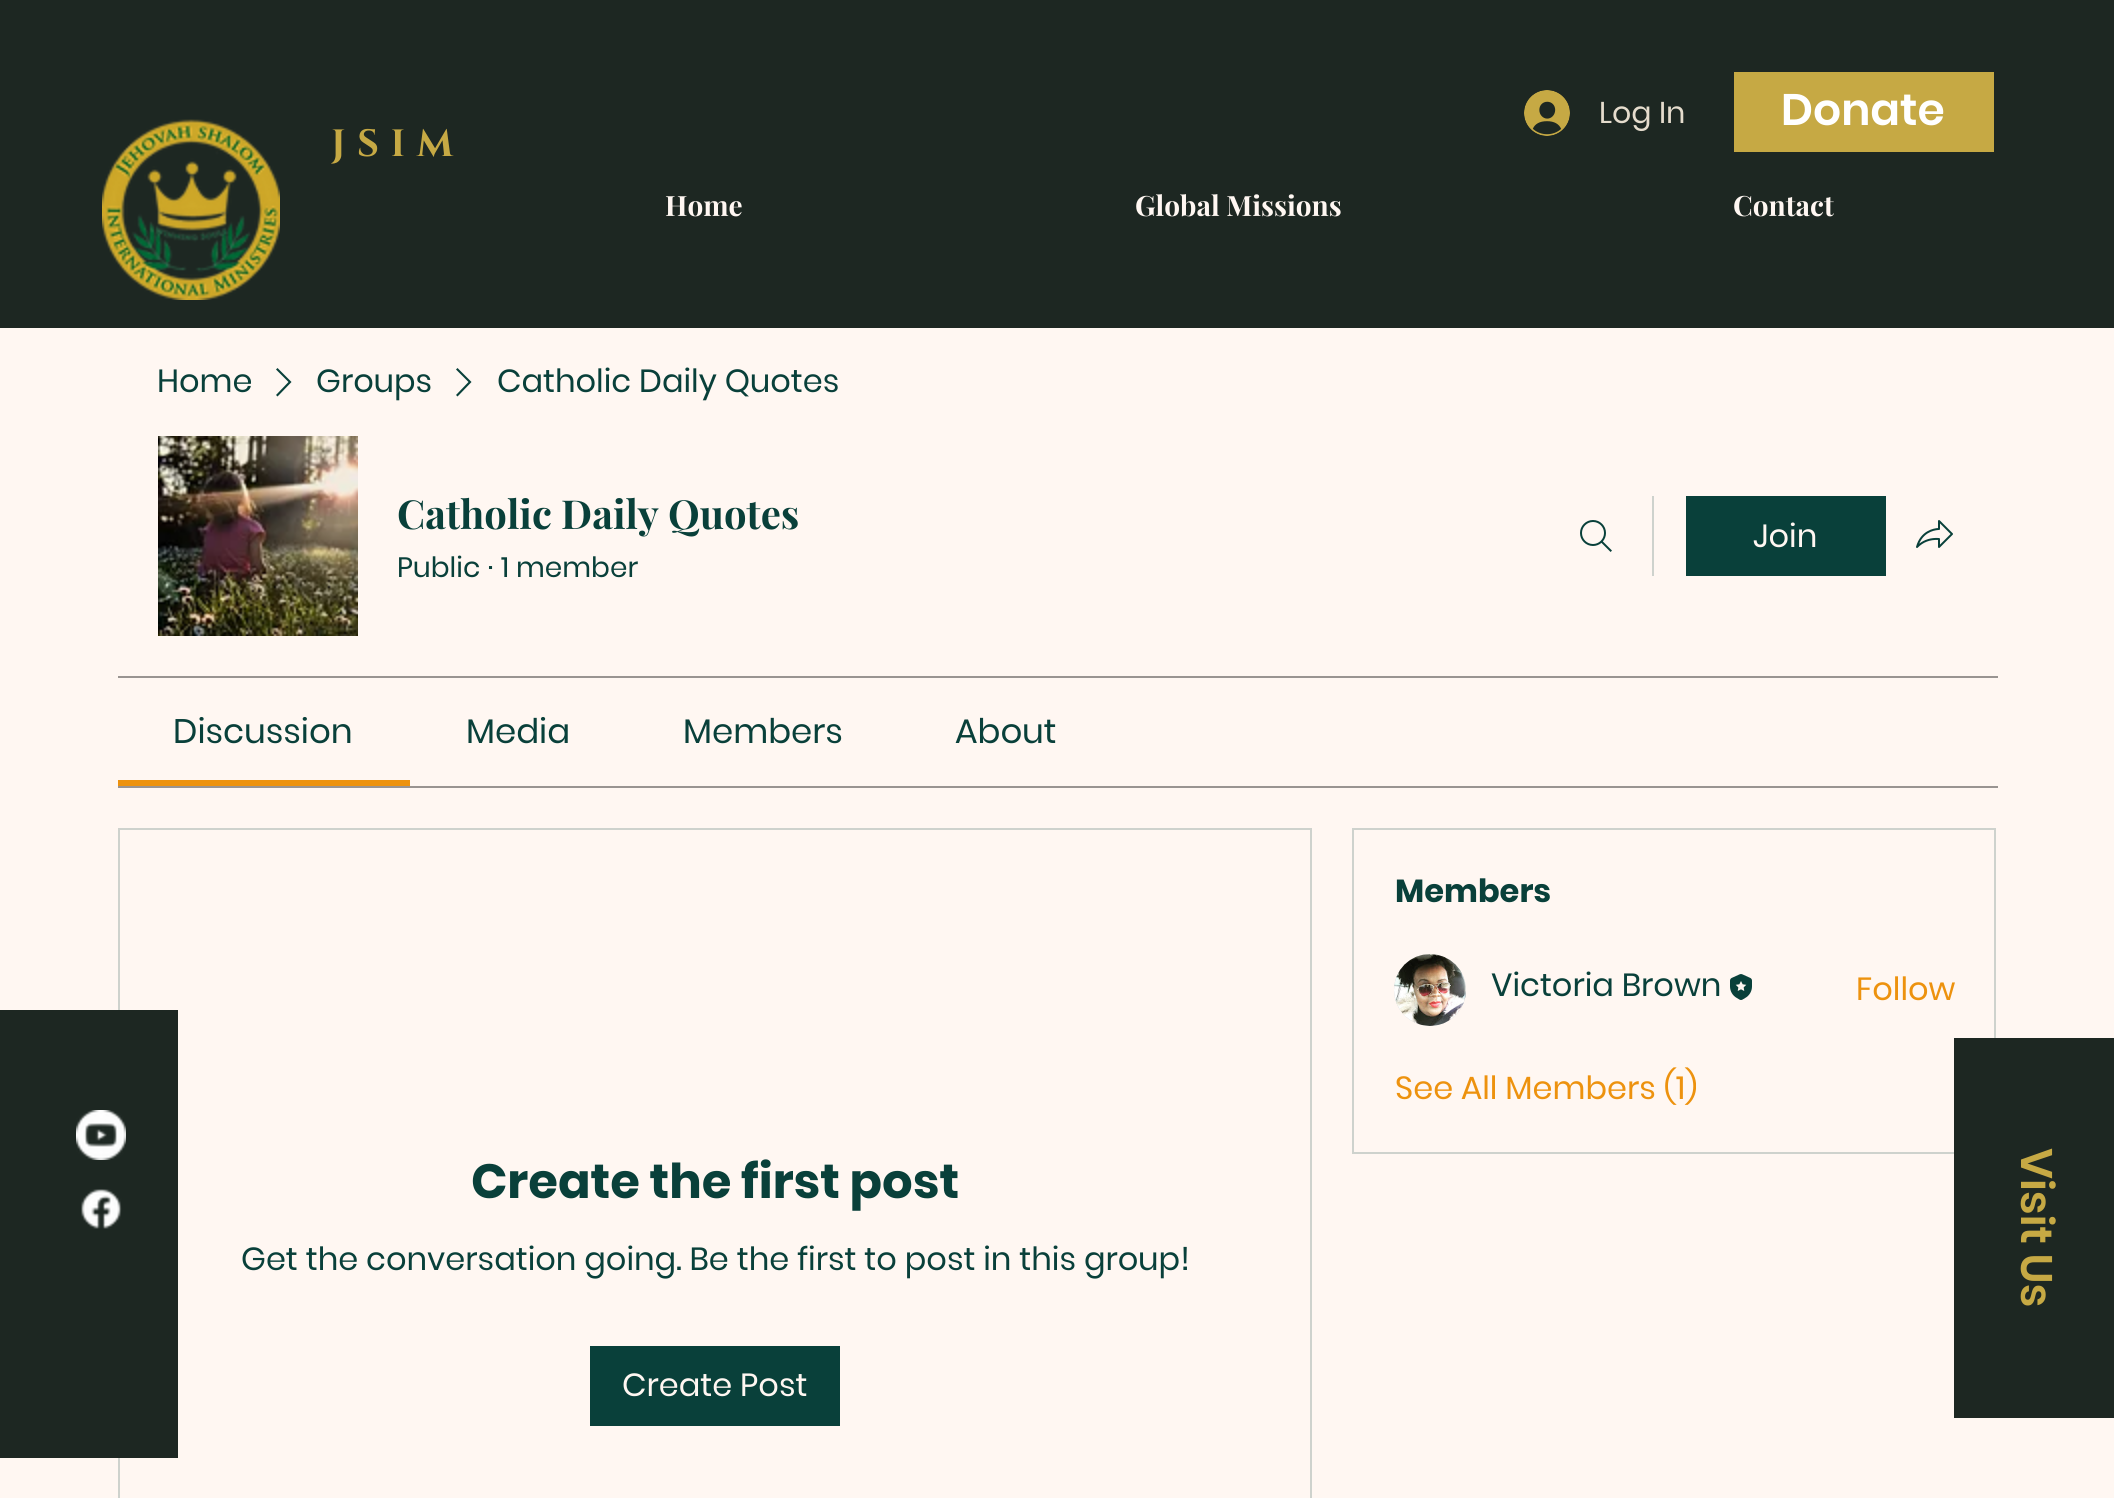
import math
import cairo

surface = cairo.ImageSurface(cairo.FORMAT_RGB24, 2114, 1498)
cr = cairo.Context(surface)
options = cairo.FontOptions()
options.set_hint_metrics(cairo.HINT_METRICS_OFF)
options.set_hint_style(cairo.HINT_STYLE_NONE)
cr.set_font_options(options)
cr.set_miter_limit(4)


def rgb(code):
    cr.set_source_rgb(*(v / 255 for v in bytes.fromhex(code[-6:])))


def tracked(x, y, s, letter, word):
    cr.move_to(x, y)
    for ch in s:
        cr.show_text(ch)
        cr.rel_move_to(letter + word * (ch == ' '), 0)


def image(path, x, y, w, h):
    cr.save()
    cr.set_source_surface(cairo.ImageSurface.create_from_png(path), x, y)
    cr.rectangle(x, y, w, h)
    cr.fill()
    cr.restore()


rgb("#fff7f2")
cr.paint()
rgb("#1d2722")
cr.rectangle(0, 0, 2114, 328)
cr.fill()
image("img/1.png", 102, 119, 178, 181)
image("img/2.png", 1524, 90, 46, 46)
rgb("#c6a944")
cr.rectangle(1734, 72, 260, 80)
cr.fill()
cr.rectangle(119, 829, 1192, 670)
rgb("#ced2cd")
cr.stroke()
rgb("#1d2722")
cr.rectangle(0, 1010, 178, 448)
cr.fill()
image("img/3.png", 76, 1110, 50, 50)
image("img/4.png", 81, 1189, 41, 40)
rgb("#09403a")
cr.set_fill_rule(cairo.FILL_RULE_EVEN_ODD)
cr.new_path()
cr.move_to(277.5, 368)
cr.line_to(291.5, 382)
cr.line_to(277.5, 396.5)
cr.line_to(276, 395)
cr.line_to(288.5, 382)
cr.line_to(276, 369.5)
cr.close_path()
cr.fill()
cr.new_path()
cr.move_to(457.5, 368)
cr.line_to(471.5, 382)
cr.line_to(457.5, 396.5)
cr.line_to(456, 395)
cr.line_to(468.5, 382)
cr.line_to(456, 369.5)
cr.close_path()
cr.fill()
image("img/5.png", 158, 436, 200, 200)
image("img/6.png", 1580, 520, 32, 32)
rgb("#ced2cd")
cr.rectangle(1652, 496, 2, 80)
cr.fill()
rgb("#09403a")
cr.rectangle(1686, 496, 200, 80)
cr.fill()
image("img/7.png", 1916, 520, 37, 28)
for x, y, w, h, color in [
    (118, 676, 1880, 2, "#999491"),
    (118, 786, 1880, 2, "#999491"),
    (118, 780, 292, 6, "#ed920e"),
]:
    rgb(color)
    cr.rectangle(x, y, w, h)
    cr.fill()
cr.rectangle(1353, 829, 642, 324)
rgb("#ced2cd")
cr.stroke()
rgb("#d8d8d8")
cr.arc(1430, 990, 36, 0, 2 * math.pi)
cr.fill()
image("img/8.png", 1394, 954, 72, 72)
image("img/9.png", 1730, 974, 22, 26)
rgb("#09403a")
cr.rectangle(590, 1346, 250, 80)
cr.fill()
rgb("#1d2722")
cr.rectangle(1954, 1038, 160, 380)
cr.fill()
cr.select_font_face("Cinzel", cairo.FONT_SLANT_NORMAL, cairo.FONT_WEIGHT_BOLD)
cr.set_font_size(38)
rgb("#c6a944")
tracked(331, 156, "J S I M", 1, 0)
cr.select_font_face("Poppins")
cr.set_font_size(30)
rgb("#e5dccd")
cr.move_to(1599, 123)
cr.show_text("Log In")
cr.select_font_face("Poppins SemiBold")
cr.set_font_size(44)
rgb("#ffffff")
cr.move_to(1781, 125)
cr.show_text("Donate")
cr.select_font_face("Playfair Display", cairo.FONT_SLANT_NORMAL, cairo.FONT_WEIGHT_BOLD)
cr.set_font_size(28)
rgb("#fff7f2")
for x, y, s in [
    (665, 216, "Home"),
    (1135, 216, "Global Missions"),
    (1733, 216, "Contact"),
]:
    cr.move_to(x, y)
    cr.show_text(s)
cr.select_font_face("Poppins")
cr.set_font_size(32)
rgb("#09403a")
for x, y, s in [
    (157, 392, "Home"),
    (316, 392, "Groups"),
    (497, 392, "Catholic Daily Quotes"),
]:
    cr.move_to(x, y)
    cr.show_text(s)
cr.select_font_face("Playfair Display", cairo.FONT_SLANT_NORMAL, cairo.FONT_WEIGHT_BOLD)
cr.set_font_size(40)
cr.move_to(397, 529)
cr.show_text("Catholic Daily Quotes")
cr.select_font_face("Poppins")
cr.set_font_size(28)
for x, y, s in [
    (397, 577, "Public"),
    (488, 577, "·"),
    (501, 577, "1 member"),
]:
    cr.move_to(x, y)
    cr.show_text(s)
cr.set_font_size(32)
rgb("#fff7f2")
cr.move_to(1753, 547)
cr.show_text("Join")
cr.set_font_size(34)
rgb("#09403a")
for x, y, s in [
    (173, 743, "Discussion"),
    (466, 743, "Media"),
    (683, 743, "Members"),
    (955, 743, "About"),
]:
    cr.move_to(x, y)
    cr.show_text(s)
cr.select_font_face("Poppins", cairo.FONT_SLANT_NORMAL, cairo.FONT_WEIGHT_BOLD)
cr.set_font_size(32)
cr.move_to(1395, 902)
cr.show_text("Members")
cr.select_font_face("Poppins")
cr.move_to(1491, 996)
cr.show_text("Victoria Brown")
rgb("#ed920e")
cr.move_to(1856, 1000)
cr.show_text("Follow")
cr.move_to(1395, 1099)
cr.show_text("See All Members (1)")
cr.select_font_face("Poppins", cairo.FONT_SLANT_NORMAL, cairo.FONT_WEIGHT_BOLD)
cr.set_font_size(48)
rgb("#09403a")
cr.move_to(471, 1198)
cr.show_text("Create the first post")
cr.select_font_face("Poppins")
cr.set_font_size(32)
cr.move_to(241, 1270)
cr.show_text("Get the conversation going. Be the first to post in this group!")
rgb("#fff7f2")
cr.move_to(622, 1396)
cr.show_text("Create Post")
cr.select_font_face("Poppins SemiBold")
cr.set_font_size(44)
rgb("#c6a944")
cr.save()
cr.translate(2021, 1148)
cr.rotate(90 * math.pi / 180)
cr.move_to(0, 0)
cr.show_text("Visit Us")
cr.restore()
surface.write_to_png("page.png")
